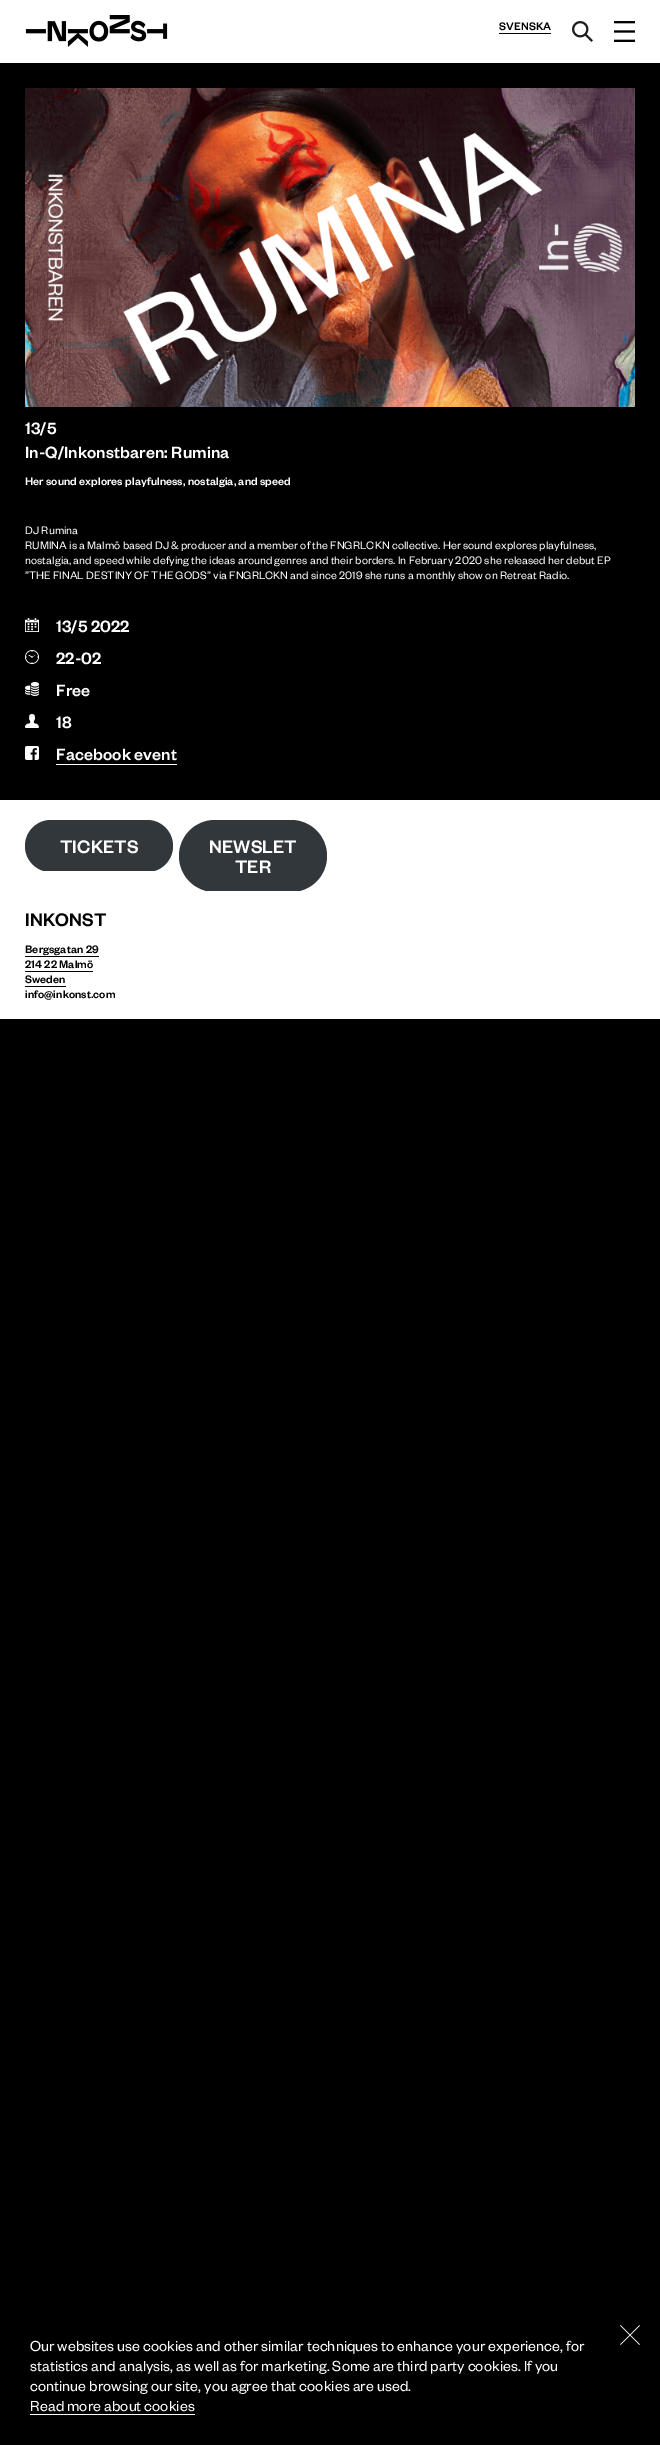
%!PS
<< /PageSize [660 2445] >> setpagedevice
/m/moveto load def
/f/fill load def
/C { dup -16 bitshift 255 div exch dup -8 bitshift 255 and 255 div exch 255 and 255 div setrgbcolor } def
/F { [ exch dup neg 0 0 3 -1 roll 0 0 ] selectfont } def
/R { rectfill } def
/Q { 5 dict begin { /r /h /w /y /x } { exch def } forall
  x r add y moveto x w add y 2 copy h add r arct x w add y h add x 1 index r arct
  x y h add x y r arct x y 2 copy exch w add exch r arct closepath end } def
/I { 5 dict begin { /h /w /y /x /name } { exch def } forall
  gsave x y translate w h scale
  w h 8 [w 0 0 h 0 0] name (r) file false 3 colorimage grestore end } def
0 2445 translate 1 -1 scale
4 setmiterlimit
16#000000 C
0 0 660 2445 R
16#FFFFFF C
0 0 660 63 R
(1.rgb) 25 15 143 32 I
/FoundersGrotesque-Medium 12 F
16#000000 C
499 30 m .1 0 (SVENSKA) ashow
499 33 52 1 R
(2.rgb) 572 21 21 21 I
(3.rgb) 614 21 21 21 I
(4.rgb) 25 88 610 319 I
/FoundersGrotesque-Medium 18 F
16#FFFFFF C
25 434 m .1 0 (13/5) ashow
25 458 m .1 0 (In-Q/Inkonstbaren: Rumina) ashow
/FoundersGrotesque-Medium 12 F
25 485 m .1 0 (Her sound explores playfulness, nostalgia, and speed) ashow
/FoundersGrotesque-Regular 12 F
25 534 m .1 0 (DJ Rumina) ashow
25 549 m .1 0 (RUMINA is a Malmö based DJ & producer and a member of the FNGRLCKN collective. Her sound explores playfulness,) ashow
25 564 m .1 0 (nostalgia, and speed while defying the ideas around genres and their borders. In February 2020 she released her debut EP) ashow
25 579 m .1 0 (”THE FINAL DESTINY OF THE GODS” via FNGRLCKN and since 2019 she runs a monthly show on Retreat Radio.) ashow
(5.rgb) 25 618 14 14 I
/FoundersGrotesque-Medium 18 F
56 632 m .1 0 (13/5 2022) ashow
(6.rgb) 25 650 14 14 I
56 664 m .1 0 (22-02) ashow
(7.rgb) 25 682 14 14 I
56 696 m .1 0 (Free) ashow
(8.rgb) 25 714 14 14 I
56 728 m .1 0 (18) ashow
(9.rgb) 25 746 14 14 I
56 760 m .1 0 (Facebook event) ashow
56 764 121 1 R
0 800 660 219 R
16#32373C C
25 820 148 52 26 Q f
16#FFFFFF C
38 871 122 1 R
/FoundersGrotesque-Medium 20 F
60 853 m .1 0 (TICKETS) ashow
16#32373C C
179 820 148 72 36 Q f
16#FFFFFF C
207 891 92 1 R
209 853 m .1 0 (NEWSLET) ashow
235 873 m .1 0 (TER) ashow
16#000000 C
25 926 m .1 0 (INKONST) ashow
/FoundersGrotesque-Medium 12 F
25 953 m .1 0 (Bergsgatan 29) ashow
25 956 74 1 R
25 968 m .1 0 (214 22 Malmö) ashow
25 971 68 1 R
25 983 m .1 0 (Sweden) ashow
25 986 41 1 R
25 998 m .1 0 (info@inkonst.com) ashow
(10.rgb) 620 2325 20 20 I
/FoundersGrotesque-Regular 16 F
16#FFFFFF C
30 2351 m .1 0 (Our websites use cookies and other similar techniques to enhance your experience, for) ashow
30 2371 m .1 0 (statistics and analysis, as well as for marketing. Some are third party cookies. If you) ashow
30 2391 m .1 0 (continue browsing our site, you agree that cookies are used.) ashow
30 2411 m .1 0 (Read more about cookies) ashow
30 2414 165 1 R
showpage
